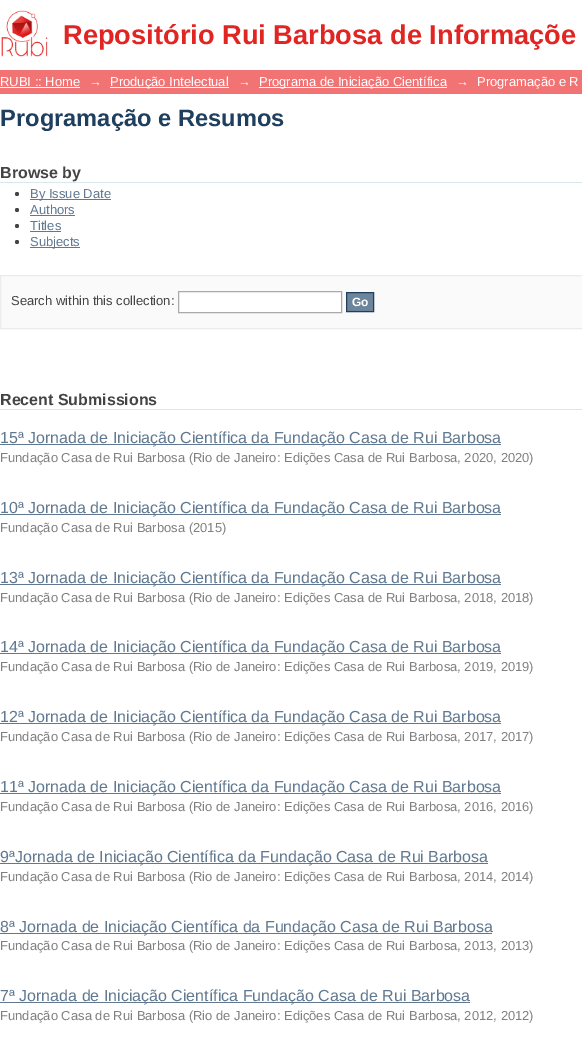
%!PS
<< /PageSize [582 1064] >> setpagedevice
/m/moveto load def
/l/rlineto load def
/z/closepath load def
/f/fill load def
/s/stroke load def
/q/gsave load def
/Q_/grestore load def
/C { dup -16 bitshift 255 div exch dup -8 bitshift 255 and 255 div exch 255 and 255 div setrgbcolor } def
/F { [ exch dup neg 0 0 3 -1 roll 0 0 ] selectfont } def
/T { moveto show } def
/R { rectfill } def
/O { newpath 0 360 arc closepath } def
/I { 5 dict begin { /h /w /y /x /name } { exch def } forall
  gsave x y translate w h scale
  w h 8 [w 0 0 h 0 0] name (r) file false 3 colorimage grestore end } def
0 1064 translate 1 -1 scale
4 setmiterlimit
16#FFFFFF C
0 0 582 1064 R
(1.rgb) 1 10 47 47 I
/LiberationSans-Bold 27.25 F
16#E12523 C
(Repositório Rui Barbosa de Informaçõe) 63 44 T
16#F17374 C
0 70 582 24 R
/LiberationSans-Regular 13 F
16#FFFFFF C
(RUBI :: Home) 0 86 T
0 87 80 1 R
(→) 89 86 T
110 87 119 1 R
(Produção Intelectual) 110 86 T
(→) 238 86 T
259 87 188 1 R
(Programa de Iniciação Científica) 259 86 T
(→) 456 86 T
(Programação e R) 477 86 T
/LiberationSans-Bold 23.7 F
16#1F3F5E C
(Programação e Resumos) 0 126 T
16#D8E8EB C
0 182 582 1 R
/LiberationSans-Bold 16 F
16#444444 C
(Browse by) 0 178 T
17 194 2 O f
16#607890 C
30 199 81 1 R
/LiberationSans-Regular 13 F
(By Issue Date) 30 198 T
16#444444 C
17 210 2 O f
16#607890 C
(Authors) 30 214 T
30 215 45 1 R
16#444444 C
17 226 2 O f
16#607890 C
(Titles) 30 230 T
30 231 31 1 R
16#444444 C
17 242 2 O f
16#607890 C
30 247 50 1 R
(Subjects) 30 246 T
16#FAFAFA C
.5 275.5 m 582 0 l 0 53 l -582 0 l z q f Q_
16#EBEBEB C
s
16#444444 C
(Search within this collection:) 11 305 T
16#FFFFFF C
178.5 291.5 m 163 0 l 0 21 l -163 0 l z q f Q_
16#AAAAAA C
s
16#6D859C C
346.5 292.5 m 27 0 l 0 19 l -27 0 l z q f Q_
16#1F3F5E C
s
/LiberationSans-Bold 12 F
16#FFFFFF C
(Go) 352 306 T
16#D8E8EB C
0 409 582 1 R
/LiberationSans-Bold 16 F
16#444444 C
(Recent Submissions) 0 405 T
16#607890 C
0 444 501 1 R
/LiberationSans-Regular 16 F
(15ª Jornada de Iniciação Científica da Fundação Casa de Rui Barbosa) 0 443 T
/LiberationSans-Regular 13 F
16#808080 C
(Fundação Casa de Rui Barbosa \(Rio de Janeiro: Edições Casa de Rui Barbosa, 2020, 2020\)) 0 462 T
16#607890 C
0 514 501 1 R
/LiberationSans-Regular 16 F
(10ª Jornada de Iniciação Científica da Fundação Casa de Rui Barbosa) 0 513 T
/LiberationSans-Regular 13 F
16#808080 C
(Fundação Casa de Rui Barbosa \(2015\)) 0 532 T
16#607890 C
0 584 501 1 R
/LiberationSans-Regular 16 F
(13ª Jornada de Iniciação Científica da Fundação Casa de Rui Barbosa) 0 583 T
/LiberationSans-Regular 13 F
16#808080 C
(Fundação Casa de Rui Barbosa \(Rio de Janeiro: Edições Casa de Rui Barbosa, 2018, 2018\)) 0 602 T
16#607890 C
0 653 501 1 R
/LiberationSans-Regular 16 F
(14ª Jornada de Iniciação Científica da Fundação Casa de Rui Barbosa) 0 652 T
/LiberationSans-Regular 13 F
16#808080 C
(Fundação Casa de Rui Barbosa \(Rio de Janeiro: Edições Casa de Rui Barbosa, 2019, 2019\)) 0 671 T
16#607890 C
0 723 501 1 R
/LiberationSans-Regular 16 F
(12ª Jornada de Iniciação Científica da Fundação Casa de Rui Barbosa) 0 722 T
/LiberationSans-Regular 13 F
16#808080 C
(Fundação Casa de Rui Barbosa \(Rio de Janeiro: Edições Casa de Rui Barbosa, 2017, 2017\)) 0 741 T
16#607890 C
0 793 501 1 R
/LiberationSans-Regular 16 F
(11ª Jornada de Iniciação Científica da Fundação Casa de Rui Barbosa) 0 792 T
/LiberationSans-Regular 13 F
16#808080 C
(Fundação Casa de Rui Barbosa \(Rio de Janeiro: Edições Casa de Rui Barbosa, 2016, 2016\)) 0 811 T
16#607890 C
0 863 488 1 R
/LiberationSans-Regular 16 F
(9ªJornada de Iniciação Científica da Fundação Casa de Rui Barbosa) 0 862 T
/LiberationSans-Regular 13 F
16#808080 C
(Fundação Casa de Rui Barbosa \(Rio de Janeiro: Edições Casa de Rui Barbosa, 2014, 2014\)) 0 881 T
16#607890 C
0 933 492 1 R
/LiberationSans-Regular 16 F
(8ª Jornada de Iniciação Científica da Fundação Casa de Rui Barbosa) 0 932 T
/LiberationSans-Regular 13 F
16#808080 C
(Fundação Casa de Rui Barbosa \(Rio de Janeiro: Edições Casa de Rui Barbosa, 2013, 2013\)) 0 950 T
16#607890 C
0 1002 470 1 R
/LiberationSans-Regular 16 F
(7ª Jornada de Iniciação Científica Fundação Casa de Rui Barbosa) 0 1001 T
/LiberationSans-Regular 13 F
16#808080 C
(Fundação Casa de Rui Barbosa \(Rio de Janeiro: Edições Casa de Rui Barbosa, 2012, 2012\)) 0 1020 T
showpage
